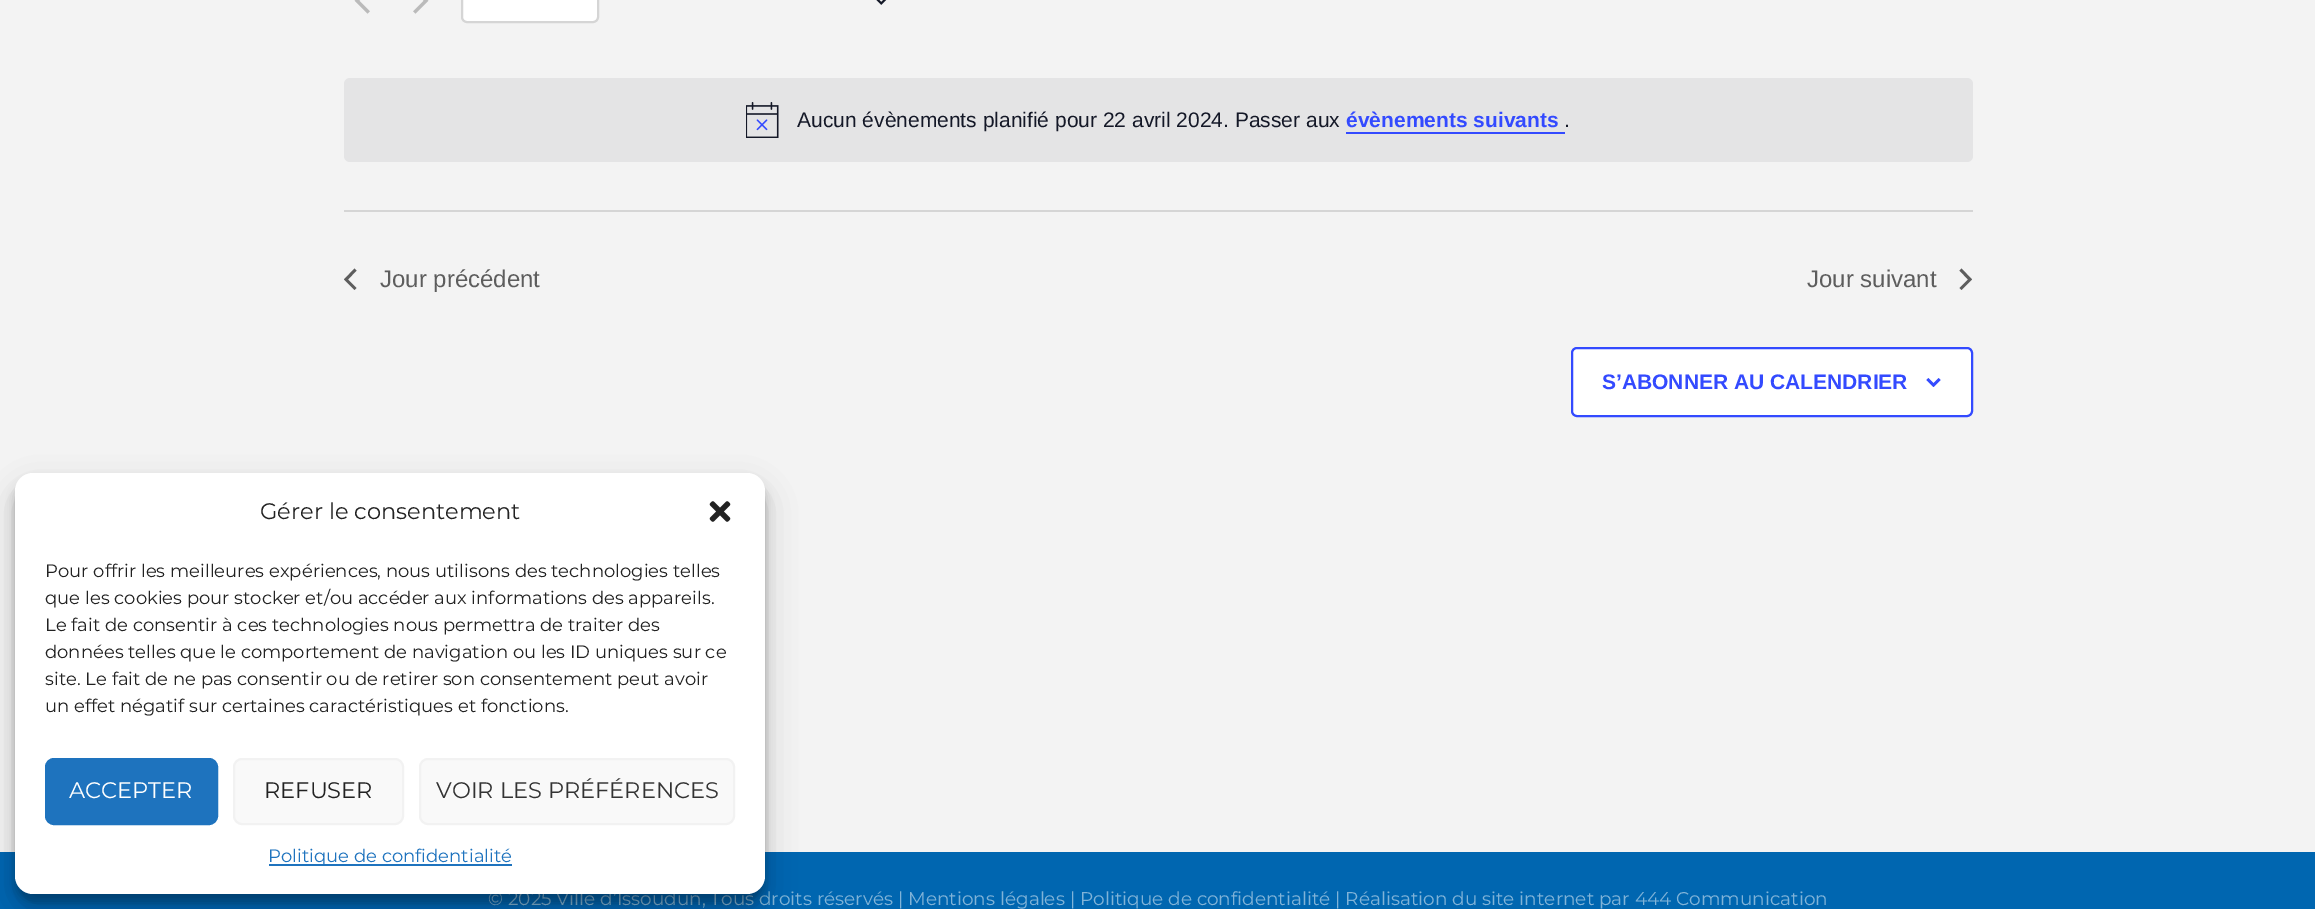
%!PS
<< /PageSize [2315 909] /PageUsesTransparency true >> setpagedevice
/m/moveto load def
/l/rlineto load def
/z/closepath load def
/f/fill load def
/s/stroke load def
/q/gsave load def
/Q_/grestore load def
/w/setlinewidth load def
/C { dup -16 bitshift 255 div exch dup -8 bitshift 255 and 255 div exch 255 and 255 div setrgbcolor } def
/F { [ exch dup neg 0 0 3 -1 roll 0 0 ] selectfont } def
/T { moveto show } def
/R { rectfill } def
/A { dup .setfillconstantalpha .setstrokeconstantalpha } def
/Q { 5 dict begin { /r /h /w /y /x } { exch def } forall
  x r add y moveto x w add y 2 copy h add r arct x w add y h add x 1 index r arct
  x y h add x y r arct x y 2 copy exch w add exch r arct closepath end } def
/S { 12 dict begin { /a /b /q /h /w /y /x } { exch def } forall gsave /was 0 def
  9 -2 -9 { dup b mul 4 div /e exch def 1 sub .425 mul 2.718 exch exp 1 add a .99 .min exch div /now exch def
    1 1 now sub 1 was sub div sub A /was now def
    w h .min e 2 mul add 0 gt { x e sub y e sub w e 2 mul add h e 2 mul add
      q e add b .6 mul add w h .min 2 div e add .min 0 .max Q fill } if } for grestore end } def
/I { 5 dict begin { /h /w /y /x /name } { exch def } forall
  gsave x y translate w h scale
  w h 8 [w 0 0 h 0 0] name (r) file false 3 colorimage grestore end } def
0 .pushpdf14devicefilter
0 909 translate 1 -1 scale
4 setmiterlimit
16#F3F3F3 C
0 0 2315 909 R
(1.rgb) 354 0 16 14 I
(2.rgb) 413 0 16 14 I
16#FFFFFF C
462 -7 136 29 5 Q q f Q_
16#D5D5D5 C
2 w
s
(3.rgb) 876 0 11 5 I
16#E4E4E5 C
344 78 1629 84 6 Q f
(4.rgb) 746 102 33 36 I
/LiberationSans-Regular 21 F
16#141827 C
(Aucun évènements planifié pour 22 avril 2024. Passer aux) 797 127 T
/LiberationSans-Bold 21 F
16#334AFF C
(évènements suivants) 1346 127 T
1346 132 219 2 R
/LiberationSans-Regular 21 F
16#141827 C
(.) 1564 127 T
16#D5D5D5 C
344 210 1629 2 R
16#5D5D5D C
356.5 288 m -2 2 l -10.5 -10.5 l 10.5 -11 l 2 2 l -8.5 9 l z f
/LiberationSans-Regular 24 F
(Jour précédent) 380 287 T
(Jour suivant) 1807 287 T
1959.5 270.5 m 2 -2 l 10.5 11 l -10.5 10.5 l -2 -2 l 8.5 -8.5 l z f
16#FFFFFF C
1572 348 400 68 5 Q q f Q_
16#334AFF C
s
/LiberationSans-Bold 21 F
(S’ABONNER AU CALENDRIER) 1602 389 T
(5.rgb) 1926 378 15 9 I
16#0066B0 C
0 852 2315 57 R
/Montserrat-Regular 18.48 F
16#80B3D8 C
(© 2025 Ville d’Issoudun, Tous droits réservés | Mentions légales | Politique de confidentialité | Réalisation du site internet par 444 Communication) 488 905 T
16#000000 C
15 482 750 421 18 4.5 .23 S
15 488 750 421 18 15 .19 S
16#FFFFFF C
15 473 750 421 18 Q f
/Montserrat-Regular 22.5 F
16#222222 C
(Gérer le consentement) 260 519 T
(6.rgb) 709 501 22 21 I
/Montserrat-Regular 18 F
(Pour offrir les meilleures expériences, nous utilisons des technologies telles) 45 577 T
(que les cookies pour stocker et/ou accéder aux informations des appareils.) 45 604 T
(Le fait de consentir à ces technologies nous permettra de traiter des) 45 631 T
(données telles que le comportement de navigation ou les ID uniques sur ce) 45 658 T
(site. Le fait de ne pas consentir ou de retirer son consentement peut avoir) 45 685 T
(un effet négatif sur certaines caractéristiques et fonctions.) 45 712 T
16#1E73BE C
46 759 171 65 8 Q q f Q_
s
/Montserrat-Regular 22.5 F
16#FFFFFF C
(ACCEPTER) 69 798 T
16#F9F9F9 C
234 759 169 65 8 Q q f Q_
16#F2F2F2 C
s
16#222222 C
(REFUSER) 264 798 T
16#F9F9F9 C
420 759 314 65 8 Q q f Q_
16#F2F2F2 C
s
16#333333 C
(VOIR LES PRÉFÉRENCES) 436 798 T
16#1E73BE C
269 864 243 2 R
/Montserrat-Regular 18 F
(Politique de confidentialité) 268 862 T
.poppdf14devicefilter showpage
